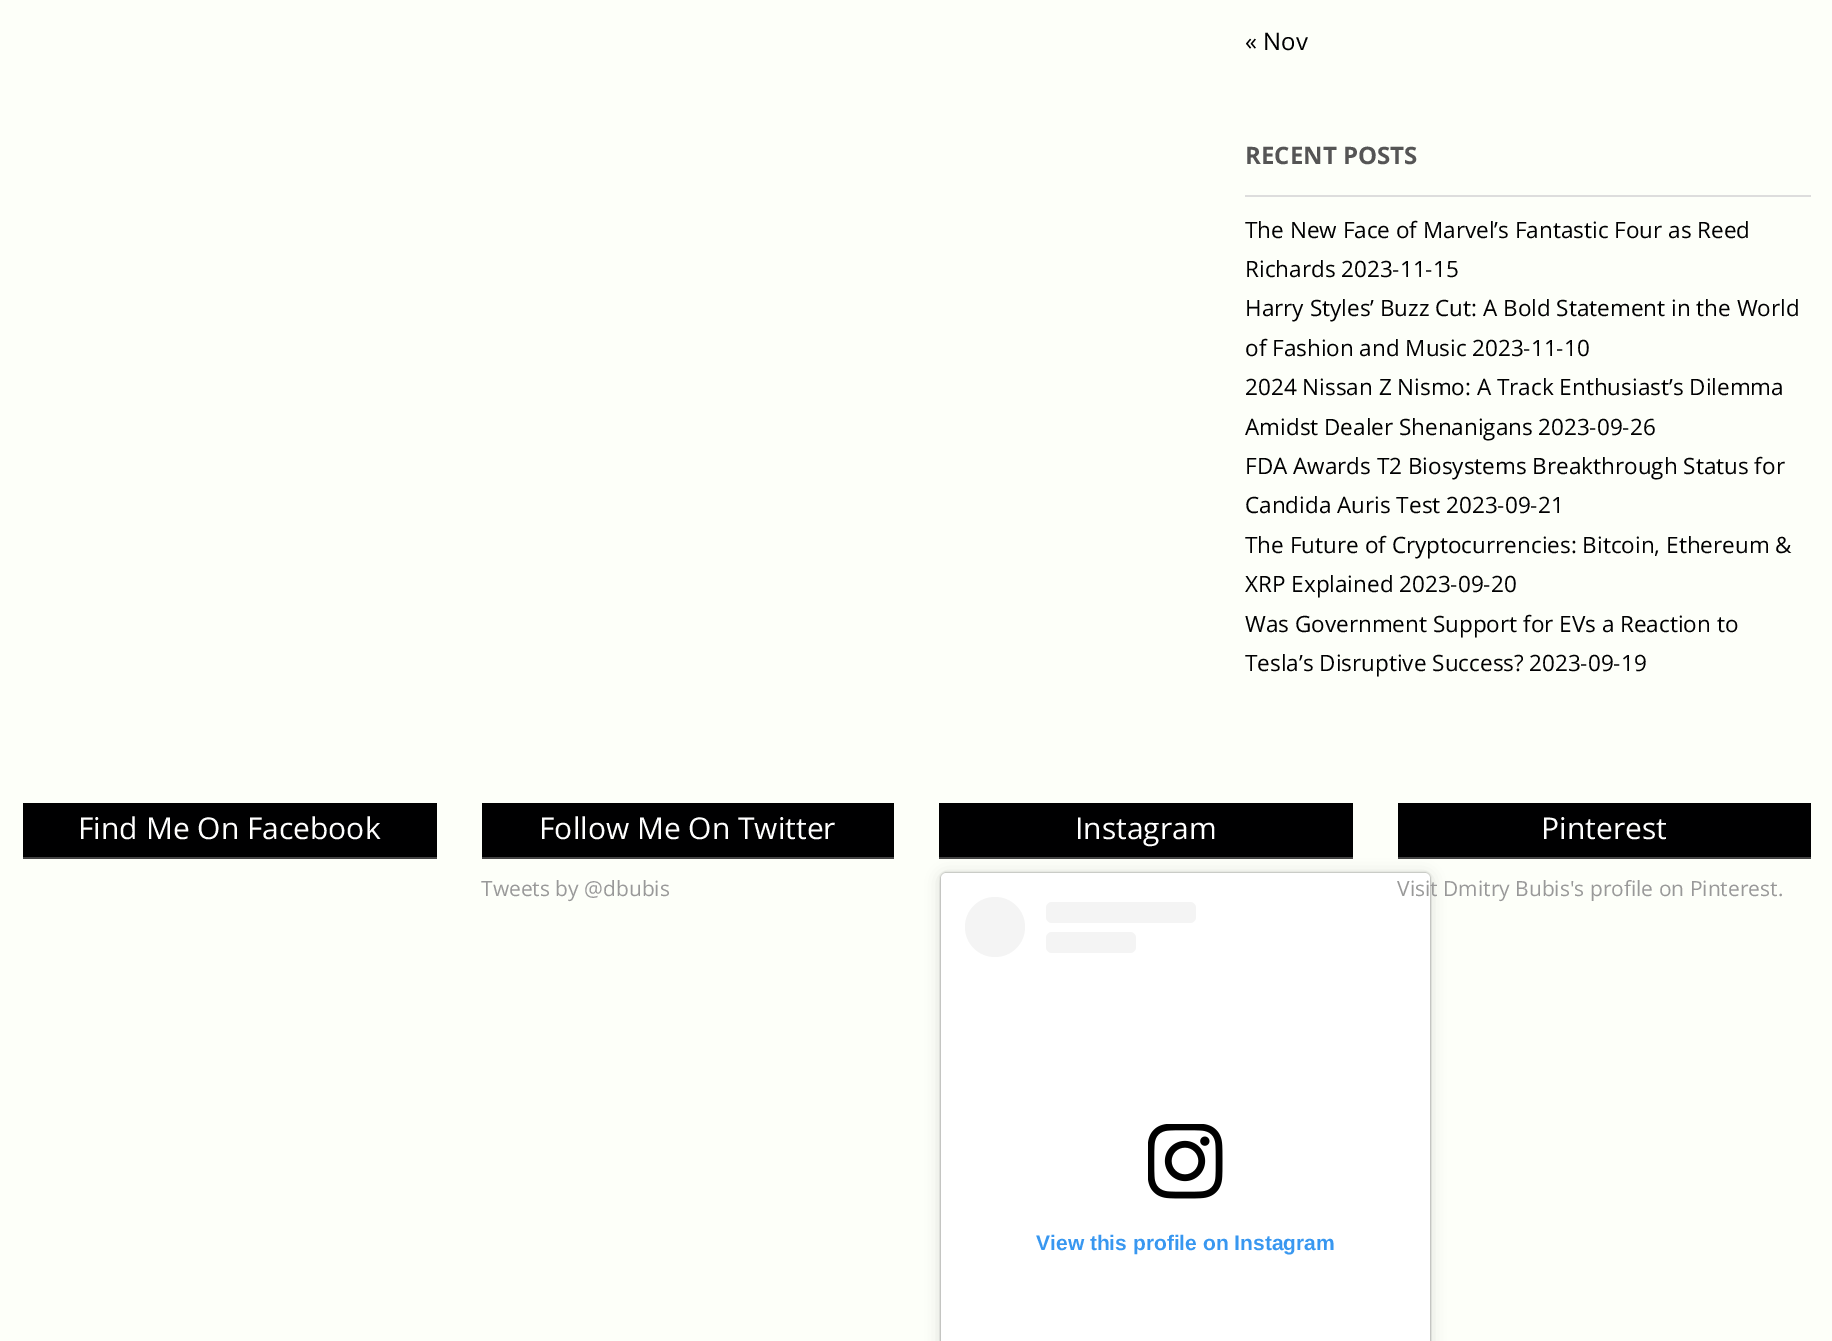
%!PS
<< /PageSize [1832 1341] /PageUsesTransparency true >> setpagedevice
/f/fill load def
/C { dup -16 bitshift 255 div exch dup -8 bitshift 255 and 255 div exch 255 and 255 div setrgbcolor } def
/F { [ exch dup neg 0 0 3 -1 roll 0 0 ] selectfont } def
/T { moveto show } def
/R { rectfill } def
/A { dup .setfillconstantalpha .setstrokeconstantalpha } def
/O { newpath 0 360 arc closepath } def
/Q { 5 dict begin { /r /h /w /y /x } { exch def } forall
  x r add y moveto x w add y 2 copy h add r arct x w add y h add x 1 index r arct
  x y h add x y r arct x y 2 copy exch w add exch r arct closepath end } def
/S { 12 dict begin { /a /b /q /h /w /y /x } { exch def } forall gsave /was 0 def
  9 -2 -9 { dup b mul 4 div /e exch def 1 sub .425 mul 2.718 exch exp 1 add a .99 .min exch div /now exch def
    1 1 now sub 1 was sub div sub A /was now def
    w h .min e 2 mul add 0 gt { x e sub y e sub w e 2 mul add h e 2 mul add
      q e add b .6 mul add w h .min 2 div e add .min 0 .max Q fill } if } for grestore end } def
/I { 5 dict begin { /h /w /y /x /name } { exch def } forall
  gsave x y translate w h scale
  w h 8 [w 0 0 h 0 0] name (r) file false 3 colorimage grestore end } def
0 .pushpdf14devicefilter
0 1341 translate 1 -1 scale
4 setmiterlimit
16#FDFFF9 C
0 0 1832 1341 R
/OpenSans-Regular 24 F
16#000001 C
(« Nov) 1245 50 T
16#DDDDDD C
1245 195 566 2 R
/OpenSans-Bold 24 F
16#555555 C
(RECENT POSTS) 1245 164 T
/OpenSans-Regular 22.5 F
16#000001 C
(The New Face of Marvel’s Fantastic Four as Reed) 1245 238 T
(Richards) 1245 277 T
(2023-11-15) 1341 277 T
(Harry Styles’ Buzz Cut: A Bold Statement in the World) 1245 316 T
(of Fashion and Music) 1245 356 T
(2023-11-10) 1472 356 T
(2024 Nissan Z Nismo: A Track Enthusiast’s Dilemma) 1245 395 T
(Amidst Dealer Shenanigans) 1245 435 T
(2023-09-26) 1538 435 T
(FDA Awards T2 Biosystems Breakthrough Status for) 1245 474 T
(Candida Auris Test) 1245 513 T
(2023-09-21) 1446 513 T
(The Future of Cryptocurrencies: Bitcoin, Ethereum &) 1245 553 T
(XRP Explained) 1245 592 T
(2023-09-20) 1399 592 T
(Was Government Support for EVs a Reaction to) 1245 632 T
(Tesla’s Disruptive Success?) 1245 671 T
(2023-09-19) 1529 671 T
23 803 414 54 R
16#444444 C
23 857 414 2 R
/OpenSans-Regular 30 F
16#FFFFFF C
(Find Me On Facebook) 78 839 T
16#000001 C
482 803 412 54 R
16#444444 C
482 857 412 2 R
16#FFFFFF C
(Follow Me On Twitter) 539 839 T
/OpenSans-Regular 21 F
16#999999 C
(Tweets by @dbubis) 481 896 T
16#000001 C
939 803 414 54 R
16#444444 C
939 857 414 2 R
/OpenSans-Regular 30 F
16#FFFFFF C
(Instagram) 1075 839 T
16#000000 C
941 875 489 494 5 7.5 .15 S
941 873 489 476 5 1 .5 S
16#FFFFFF C
941 873 489 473 5 Q f
16#F4F4F4 C
995 927 30 O f
1046 902 150 21 6 Q f
1046 932 90 21 6 Q f
(1.rgb) 1148 1124 75 75 I
/LiberationSans-Bold 21 F
16#3897F0 C
(View this profile on Instagram) 1036 1250 T
16#000001 C
1398 803 413 54 R
16#444444 C
1398 857 413 2 R
/OpenSans-Regular 30 F
16#FFFFFF C
(Pinterest) 1541 839 T
/OpenSans-Regular 21 F
16#999999 C
(Visit Dmitry Bubis's profile on Pinterest.) 1397 896 T
.poppdf14devicefilter showpage
